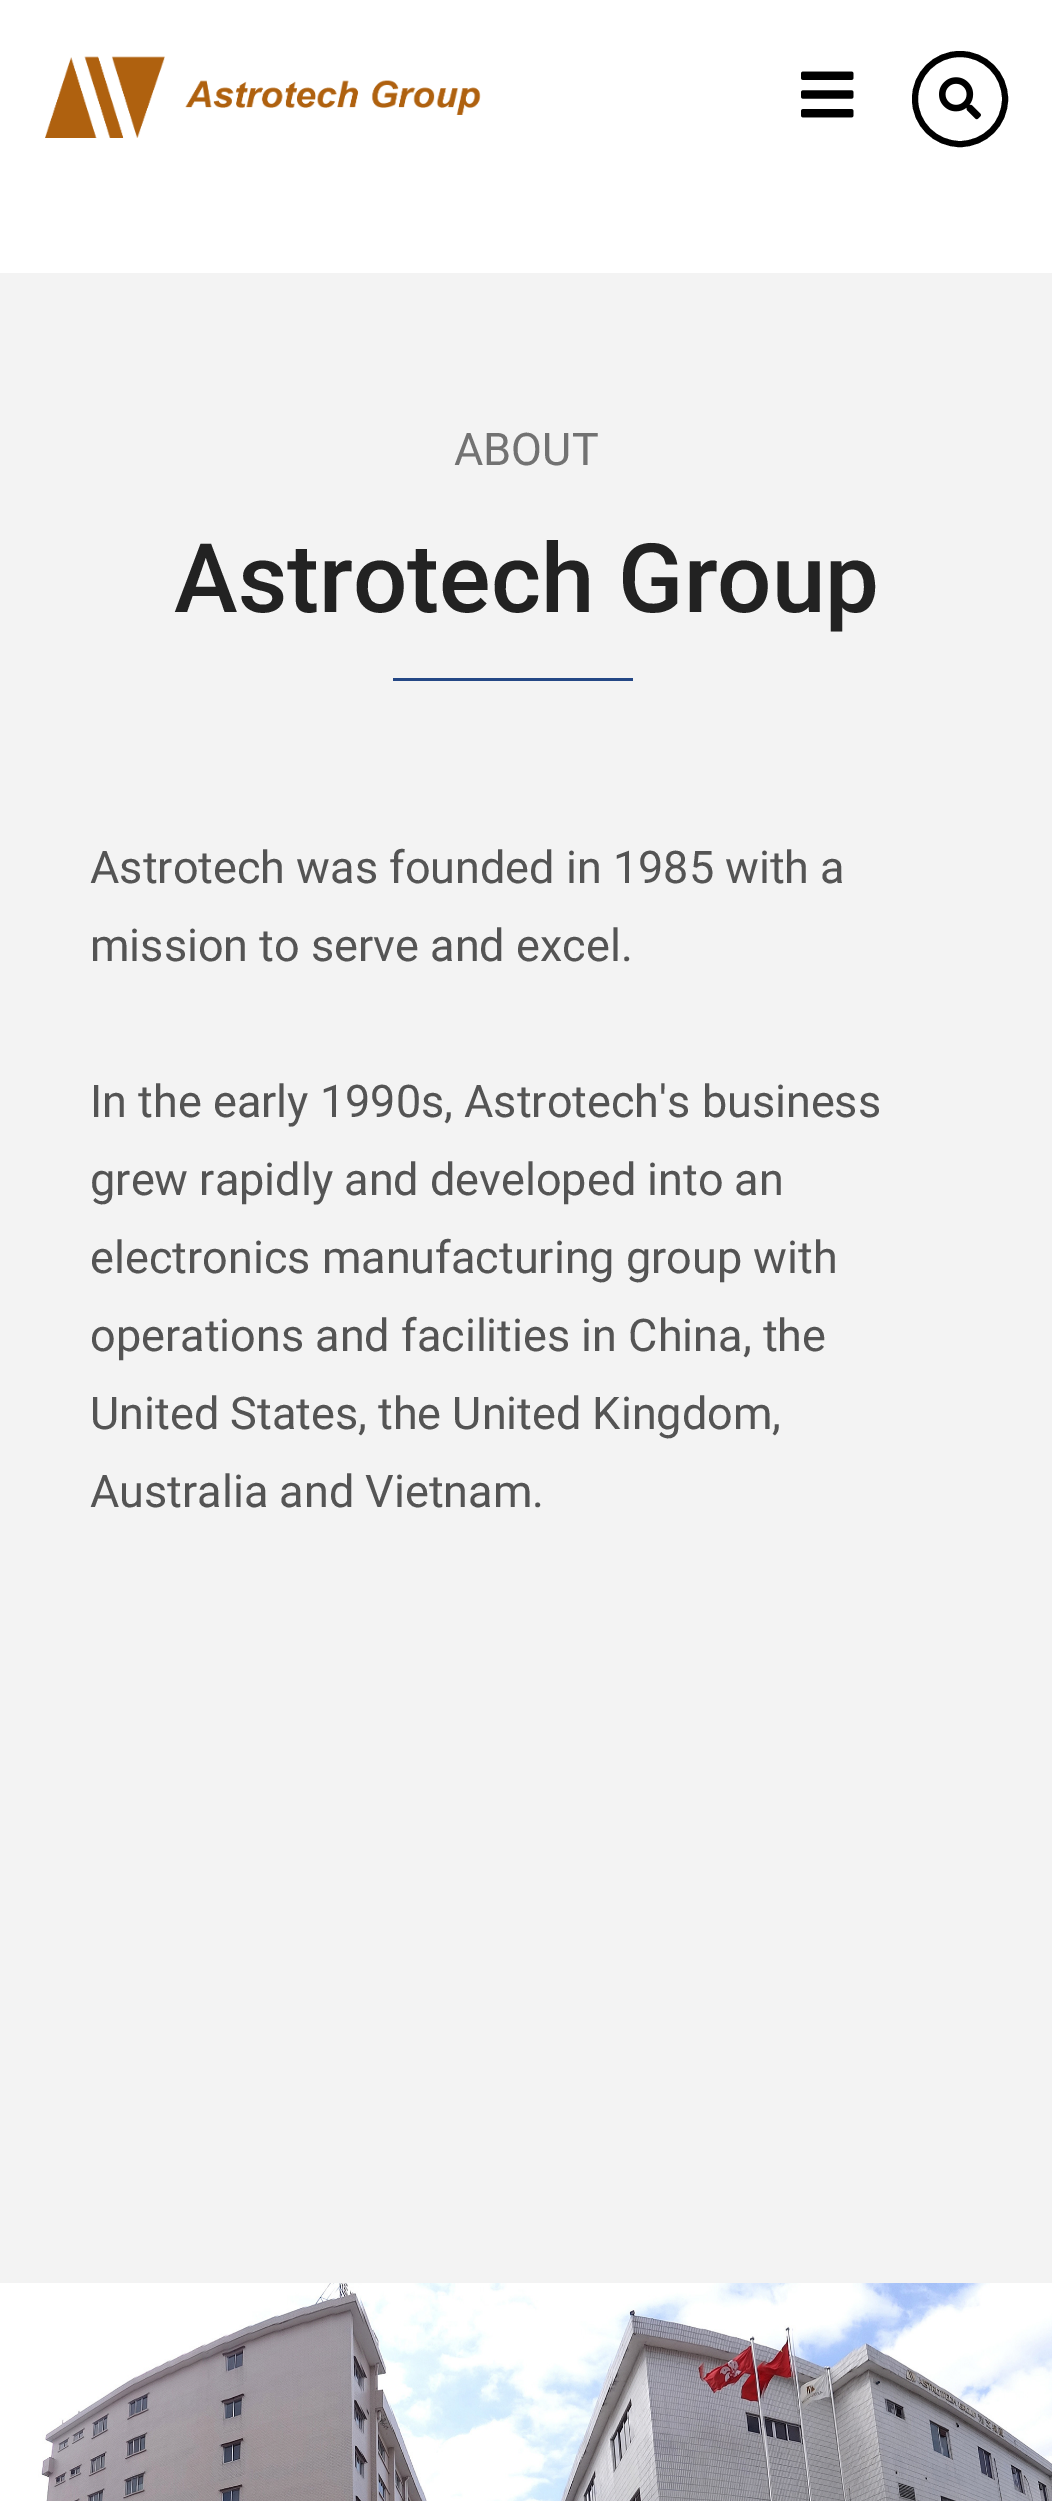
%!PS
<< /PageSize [1052 2501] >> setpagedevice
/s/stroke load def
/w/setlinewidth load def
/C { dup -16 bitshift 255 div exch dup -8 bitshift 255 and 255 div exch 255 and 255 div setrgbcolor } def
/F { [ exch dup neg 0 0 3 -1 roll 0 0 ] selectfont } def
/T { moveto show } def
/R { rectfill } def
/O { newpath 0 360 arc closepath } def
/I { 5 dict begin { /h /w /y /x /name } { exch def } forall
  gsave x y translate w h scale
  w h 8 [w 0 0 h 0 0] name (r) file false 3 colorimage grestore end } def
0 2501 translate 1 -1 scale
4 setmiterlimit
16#FFFFFF C
0 0 1052 2501 R
(1.rgb) 45 56 436 82 I
(2.rgb) 801 71 53 47 I
16#000000 C
6 w
960 99 45 O s
(3.rgb) 939 77 42 43 I
16#F3F3F3 C
0 273 1052 2010 R
/Roboto-Regular 45 F
16#727272 C
(ABOUT) 454 465 T
/Roboto-Medium 96 F
16#222222 C
(Astrotech Group) 174 612 T
16#244785 C
393 678 240 3 R
/Roboto-Regular 45 F
16#545454 C
(Astrotech was founded in 1985 with a) 90 883 T
(mission to serve and excel.) 90 961 T
(In the early 1990s, Astrotech's business) 90 1117 T
(grew rapidly and developed into an) 90 1195 T
(electronics manufacturing group with) 90 1273 T
(operations and facilities in China, the) 90 1351 T
(United States, the United Kingdom,) 90 1429 T
(Australia and Vietnam.) 90 1507 T
(4.rgb) 0 2283 1052 218 I
showpage
